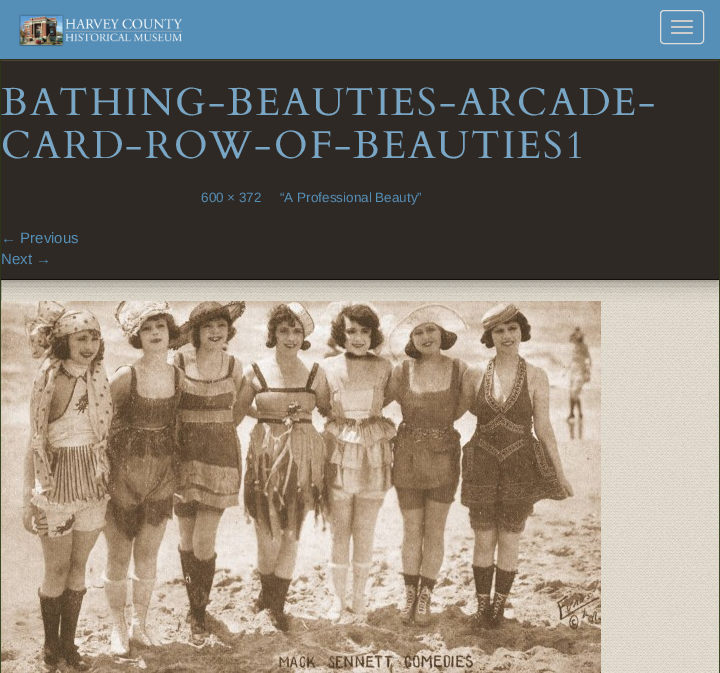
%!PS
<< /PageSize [720 673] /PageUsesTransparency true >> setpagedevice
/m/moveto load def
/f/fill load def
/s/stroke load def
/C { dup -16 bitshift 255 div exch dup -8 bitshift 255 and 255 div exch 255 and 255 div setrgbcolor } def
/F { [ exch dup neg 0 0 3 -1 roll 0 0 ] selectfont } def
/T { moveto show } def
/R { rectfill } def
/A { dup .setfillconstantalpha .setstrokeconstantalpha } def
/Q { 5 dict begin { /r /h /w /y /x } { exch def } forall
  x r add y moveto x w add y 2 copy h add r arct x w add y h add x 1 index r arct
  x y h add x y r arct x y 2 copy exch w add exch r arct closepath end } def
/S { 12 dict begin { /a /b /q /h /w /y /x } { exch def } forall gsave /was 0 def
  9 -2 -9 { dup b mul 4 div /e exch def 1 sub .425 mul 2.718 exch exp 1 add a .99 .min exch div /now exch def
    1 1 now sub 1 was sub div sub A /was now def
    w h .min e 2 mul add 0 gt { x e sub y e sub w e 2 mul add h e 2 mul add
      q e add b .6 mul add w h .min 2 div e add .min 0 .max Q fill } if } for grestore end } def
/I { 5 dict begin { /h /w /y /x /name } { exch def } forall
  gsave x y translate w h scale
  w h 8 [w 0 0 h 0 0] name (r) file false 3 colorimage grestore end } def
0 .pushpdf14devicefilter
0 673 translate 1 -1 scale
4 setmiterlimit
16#FFFFFF C
0 0 720 673 R
(2.rgb) 1 280 718 393 I
16#3B4624 C
.5 59.5 719 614 rectstroke
16#000000 C
1 60 718 220 0 10 .5 S
16#558EB6 C
0 0 720 59 R
(1.rgb) 19 14 164 33 I
16#DDDDDD C
660.5 10.5 43 33 3.5 Q s
16#CCCCCC C
671 20 22 2 1 Q f
671 26 22 2 1 Q f
671 32 22 2 1 Q f
16#2E2924 C
1 61 718 218 R
16#4B423A C
1 60 718 1 R
16#110F0E C
1 279 718 1 R
/Cardo-Regular 39 F
16#79A6C5 C
1 115 m 2 0 (BATHING-BEAUTIES-ARCADE-) ashow
1 158 m 2 0 (CARD-ROW-OF-BEAUTIES1) ashow
/LiberationSans-Regular 13.5 F
16#558EB6 C
(600 × 372) 201 202 T
(“A Professional Beauty”) 280 202 T
/LiberationSans-Regular 15 F
(← Previous) 1 243 T
(Next →) 1 264 T
(3.rgb) 1 301 600 372 I
.poppdf14devicefilter showpage
